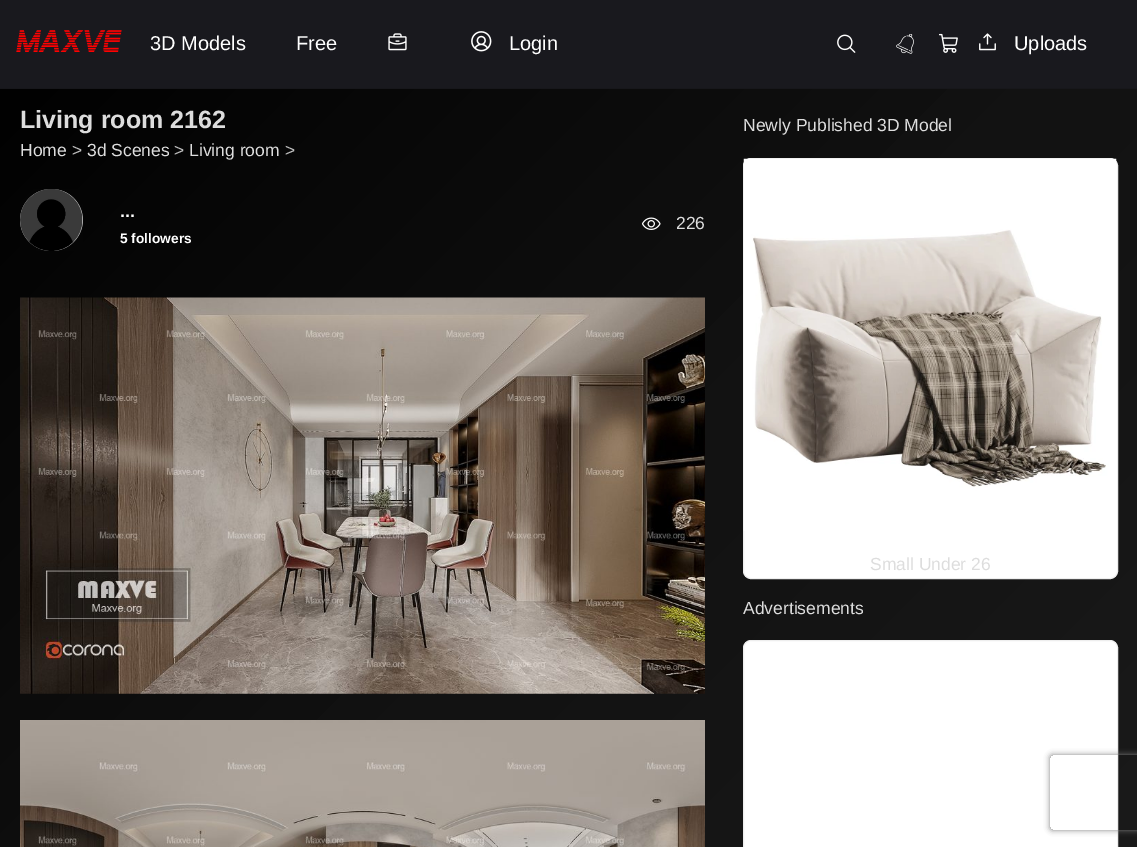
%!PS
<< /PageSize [1137 847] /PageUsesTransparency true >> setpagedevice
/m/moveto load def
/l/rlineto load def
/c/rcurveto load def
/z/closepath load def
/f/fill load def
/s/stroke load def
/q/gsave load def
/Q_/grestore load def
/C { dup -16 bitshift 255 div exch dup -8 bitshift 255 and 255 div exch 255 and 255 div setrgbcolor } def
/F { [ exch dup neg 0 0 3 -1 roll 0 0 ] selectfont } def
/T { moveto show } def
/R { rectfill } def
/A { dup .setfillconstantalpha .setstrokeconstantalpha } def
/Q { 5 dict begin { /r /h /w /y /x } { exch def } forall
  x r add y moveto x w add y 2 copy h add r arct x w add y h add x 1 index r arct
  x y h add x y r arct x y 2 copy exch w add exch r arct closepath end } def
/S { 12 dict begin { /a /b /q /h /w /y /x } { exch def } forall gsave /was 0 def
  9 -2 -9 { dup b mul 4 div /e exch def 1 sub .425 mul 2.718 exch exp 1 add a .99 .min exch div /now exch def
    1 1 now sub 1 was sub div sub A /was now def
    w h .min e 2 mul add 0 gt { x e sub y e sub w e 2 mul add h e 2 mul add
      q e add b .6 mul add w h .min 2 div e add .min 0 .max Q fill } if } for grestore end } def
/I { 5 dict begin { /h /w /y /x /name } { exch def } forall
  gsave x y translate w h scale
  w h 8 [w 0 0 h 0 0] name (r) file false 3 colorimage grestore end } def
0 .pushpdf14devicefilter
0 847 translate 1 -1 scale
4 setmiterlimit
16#FFFFFF C
0 0 1137 847 R
q 0 89 m 1137 0 l 0 758 l -1137 0 l z clip newpath
<< /ShadingType 2 /ColorSpace /DeviceRGB /Coords [-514 514 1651 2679] /Extend [true true] /Function << /FunctionType 3 /Domain [0 1] /Functions [<< /FunctionType 2 /Domain [0 1] /C0 [0 0 0] /C1 [.067 .067 .067] /N 1 >> << /FunctionType 2 /Domain [0 1] /C0 [.067 .067 .067] /C1 [.11 .11 .11] /N 1 >> << /FunctionType 2 /Domain [0 1] /C0 [.11 .11 .11] /C1 [.165 .165 .165] /N 1 >> << /FunctionType 2 /Domain [0 1] /C0 [.165 .165 .165] /C1 [.235 .235 .235] /N 1 >>] /Bounds [.25 .5 .75] /Encode [0 1 0 1 0 1 0 1] >> >> shfill Q_
16#19191E C
0 0 1137 88 R
16#17171B C
0 88 1137 1 R
(1.rgb) 16 30 106 22 I
/LiberationSans-Regular 20 F
16#FFFFFF C
(3D Models) 150 50 T
(Free) 296 50 T
(2.rgb) 388 33 19 18 I
(3.rgb) 471 31 21 21 I
(Login) 509 50 T
(4.rgb) 837 34 19 19 I
(5.rgb) 896 34 18 20 I
(6.rgb) 939 33 19 20 I
(7.rgb) 979 33 17 18 I
(Uploads) 1014 50 T
/LiberationSans-Bold 25 F
16#DDDDDD C
(Living room 2162) 20 128 T
/LiberationSans-Regular 17.5 F
(Home) 20 156 T
16#BFBFBF C
(>) 72 156 T
16#DDDDDD C
(3d Scenes) 87 156 T
16#BFBFBF C
(>) 174 156 T
16#DDDDDD C
(Living room) 189 156 T
16#BFBFBF C
(>) 285 156 T
16#CCCCCC C
20 189 63 62 31 Q f
(8.rgb) 20 189 63 62 I
/LiberationSans-Bold 17.5 F
16#FFFFFF C
(...) 120 217 T
/LiberationSans-Bold 13.75 F
(5 followers) 120 243 T
(9.rgb) 641 217 20 13 I
/LiberationSans-Regular 17.5 F
16#DDDDDD C
(226) 676 229 T
(10.rgb) 20 297 685 397 I
(11.rgb) 20 720 685 127 I
(Newly Published 3D Model) 743 131 T
16#FFFFFF C
743.5 158.5 374 420 7.5 Q q f Q_
16#EEEEEE C
s
(12.rgb) 743 158 374 373 I
16#DDDDDD C
(Small Under 26) 870 570 T
(Advertisements) 743 614 T
16#FFFFFF C
743.5 640.5 374 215 7.5 Q q f Q_
16#EEEEEE C
s
q
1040 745 m 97 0 l 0 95 l -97 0 l z 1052.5 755 m 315 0 l 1.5 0 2.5 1 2.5 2.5 c 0 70 l 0 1.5 -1 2.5 -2.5 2.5 c -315 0 l -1.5 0 -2.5 -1 -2.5 -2.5 c 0 -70 l 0 -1.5 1 -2.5 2.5 -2.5 c z eoclip newpath
16#808080 C
1050 755 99 75 2.5 3 1 S
Q_
.poppdf14devicefilter showpage
